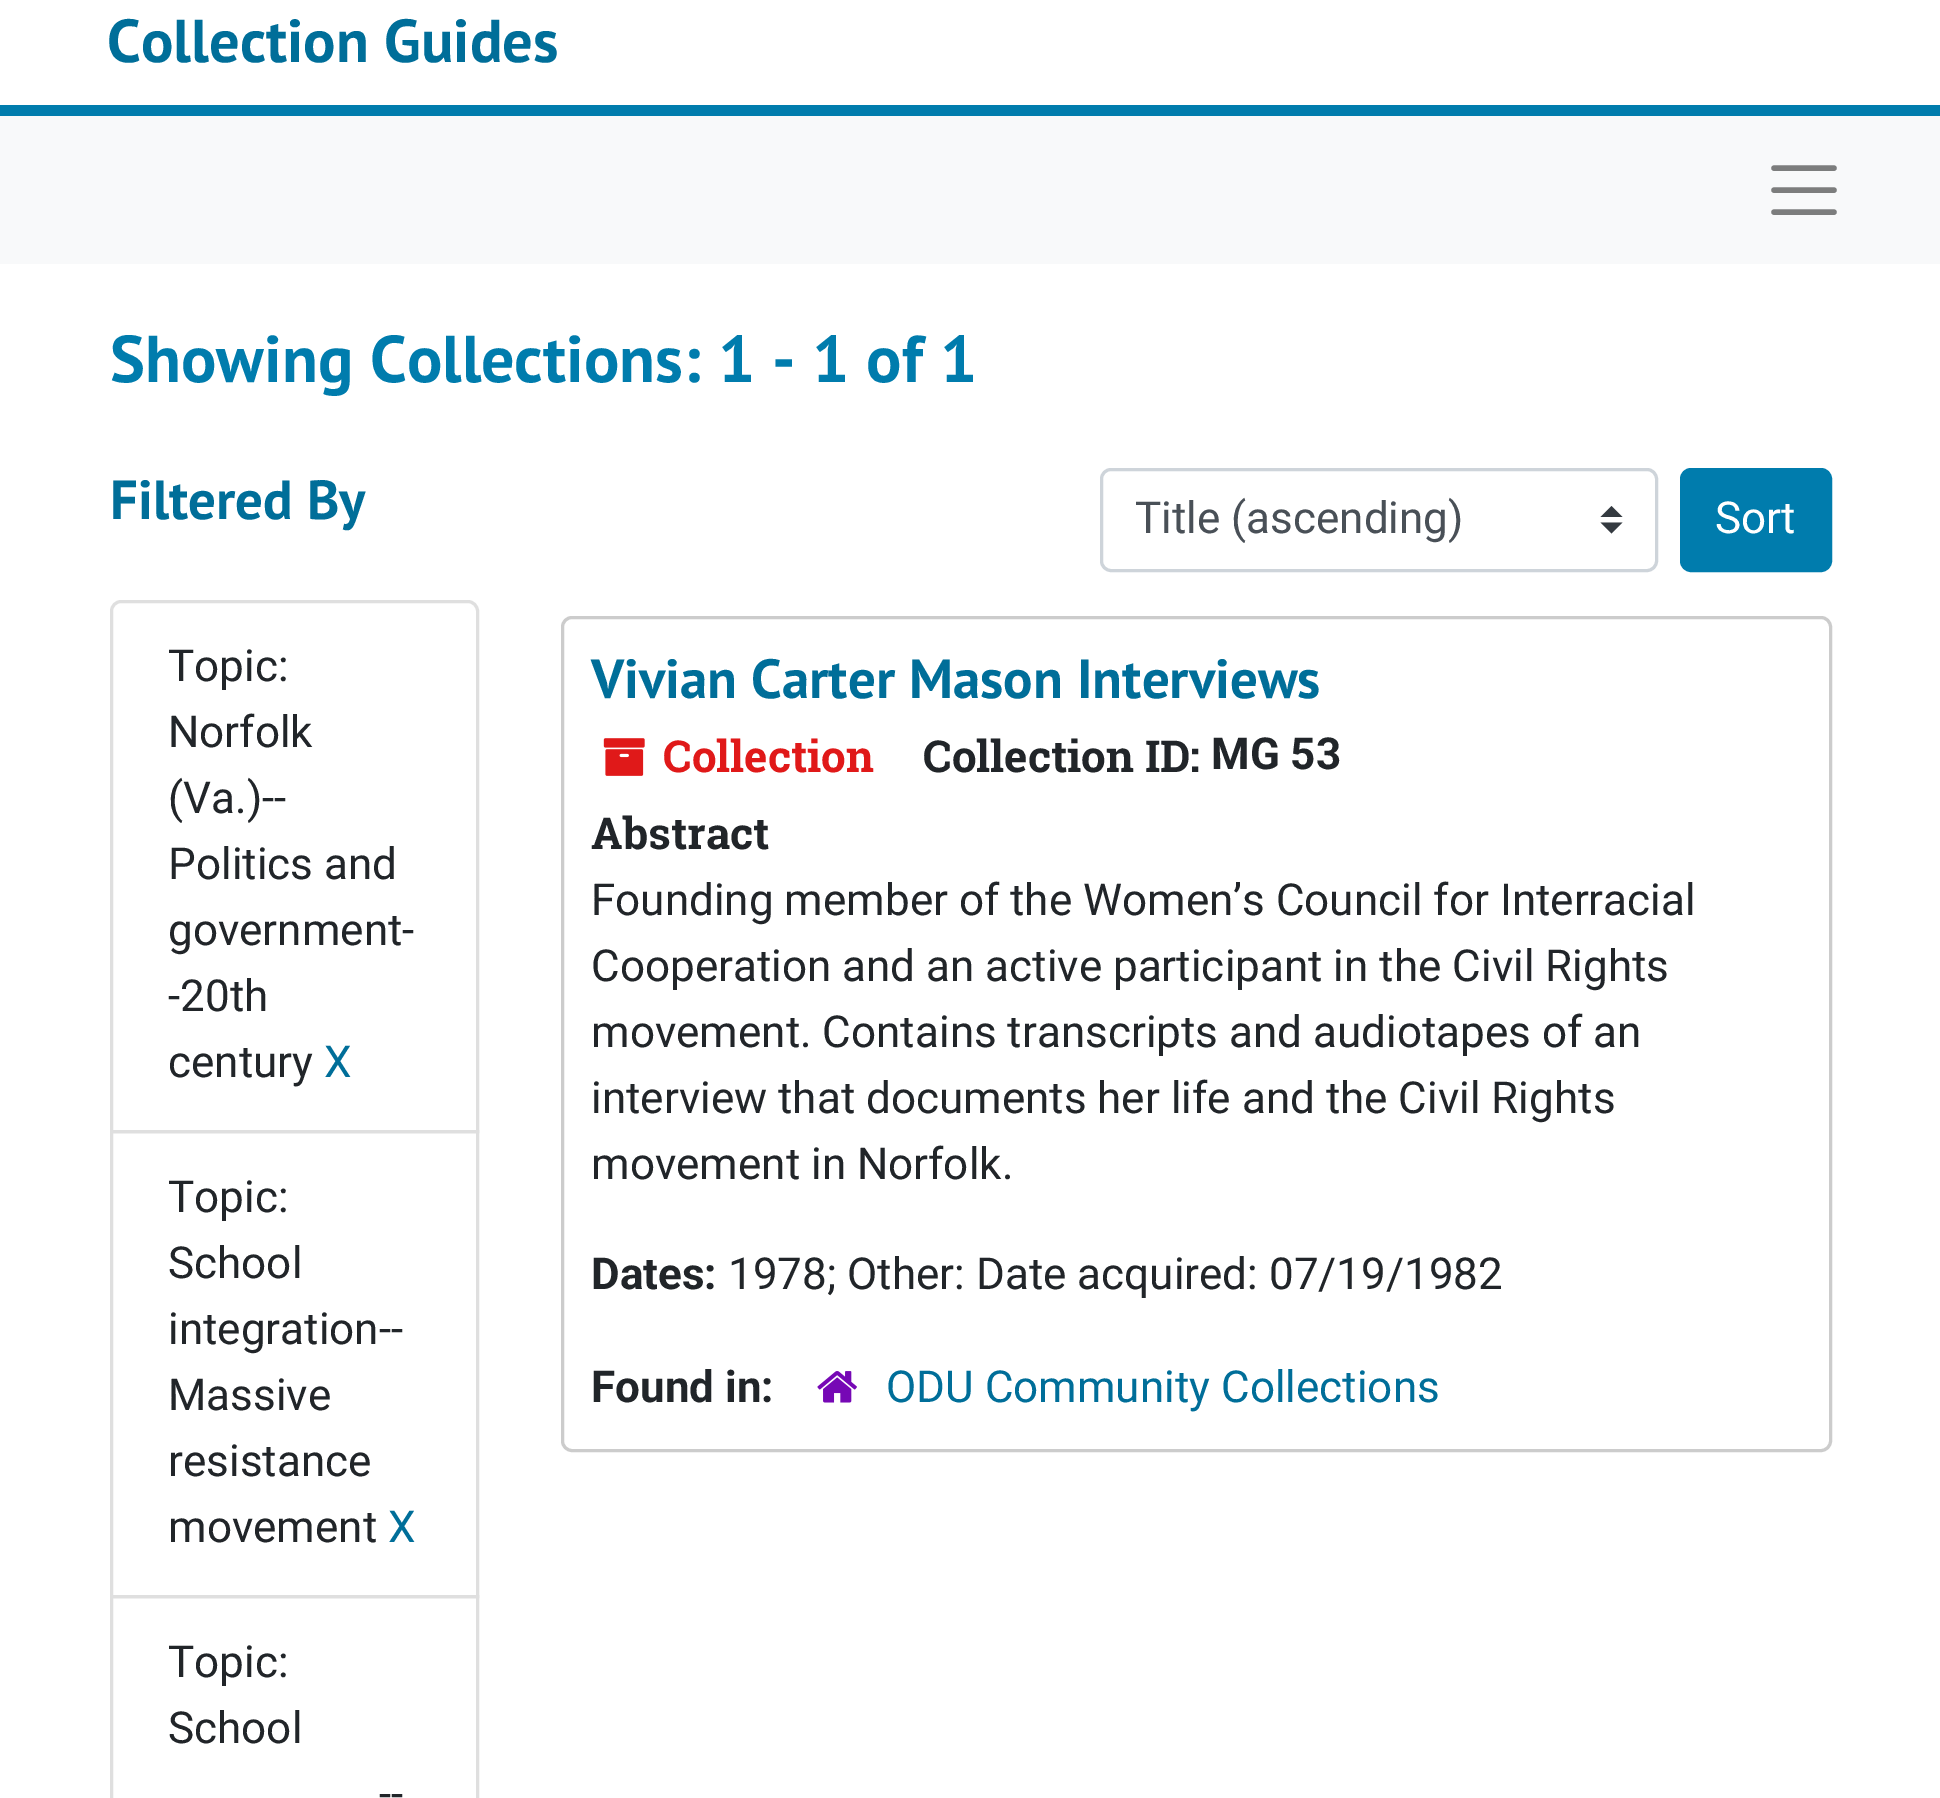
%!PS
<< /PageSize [1940 1798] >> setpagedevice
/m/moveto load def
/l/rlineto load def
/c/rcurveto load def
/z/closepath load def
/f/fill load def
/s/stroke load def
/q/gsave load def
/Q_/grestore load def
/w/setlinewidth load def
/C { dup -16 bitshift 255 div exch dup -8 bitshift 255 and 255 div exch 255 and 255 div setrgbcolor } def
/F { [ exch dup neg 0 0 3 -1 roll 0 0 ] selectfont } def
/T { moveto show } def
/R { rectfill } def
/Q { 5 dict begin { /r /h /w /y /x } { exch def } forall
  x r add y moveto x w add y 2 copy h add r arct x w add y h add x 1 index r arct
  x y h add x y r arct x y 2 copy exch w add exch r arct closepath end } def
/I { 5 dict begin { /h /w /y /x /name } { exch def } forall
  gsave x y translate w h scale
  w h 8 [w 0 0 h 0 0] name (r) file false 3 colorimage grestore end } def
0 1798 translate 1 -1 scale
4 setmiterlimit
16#FFFFFF C
0 0 1940 1798 R
16#007CAD C
0 105 1940 11 R
/PTSans-Bold 60.5 F
16#006E99 C
(Collection Guides) 107 62 T
16#F8F9FA C
0 116 1940 148 R
16#7C7D7D C
5.5 w
1 setlinecap
1774 168 m 60 0 l 1774 190 m 60 0 l 1774 212 m 60 0 l s
/PTSans-Bold 66 F
16#007CAD C
(Showing Collections: 1 - 1 of 1) 110 382 T
/PTSans-Bold 55 F
16#006E99 C
(Filtered By) 110 519 T
16#DFDFDF C
3 w
0 setlinecap
121 601.5 m 347 0 l 5 0 9.5 4.5 9.5 9.5 c 0 520.5 l -366 0 l 0 -520.5 l 0 -5 4.5 -9.5 9.5 -9.5 c z s
/Roboto-Regular 44 F
16#212529 C
(Topic:) 168 681 T
(Norfolk) 168 747 T
(\(Va.\)--) 168 813 T
(Politics and) 168 879 T
(government-) 168 945 T
(-20th) 168 1011 T
(century) 168 1077 T
16#006E99 C
(X) 324 1077 T
16#DFDFDF C
111.5 1131.5 366 465 rectstroke
16#212529 C
(Topic:) 168 1212 T
(School) 168 1278 T
(integration--) 168 1344 T
(Massive) 168 1410 T
(resistance) 168 1476 T
(movement) 168 1542 T
16#006E99 C
(X) 388 1542 T
16#DFDFDF C
111.5 1596.5 366 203 rectstroke
16#212529 C
(Topic:) 168 1677 T
(School) 168 1743 T
(--) 379 1809 T
16#343A40 C
1611.5 506 m -11 11 l 22 0 l z 1611.5 533.5 m -11 -11 l 22 0 l z f
16#CED4DA C
1101.5 469.5 555 101 9.5 Q s
16#495057 C
(Title \(ascending\)) 1135 533 T
16#007CAD C
1681.5 469.5 149 101 9.5 Q q f Q_
s
16#FFFFFF C
(Sort) 1715 533 T
16#CCCCCC C
562.5 617.5 1268 833 9.5 Q s
/PTSans-Bold 55 F
16#006E99 C
(Vivian Carter Mason Interviews) 591 698 T
(1.rgb) 603 738 42 38 I
/RobotoSlab-Bold 44 F
16#E01919 C
(Collection) 663 772 T
16#212529 C
(Collection ID:) 923 772 T
/Roboto-Bold 44 F
(MG 53) 1211 769 T
/RobotoSlab-Bold 44 F
(Abstract) 591 849 T
/Roboto-Regular 44 F
(Founding member of the Women’s Council for Interracial) 591 915 T
(Cooperation and an active participant in the Civil Rights) 591 981 T
(movement. Contains transcripts and audiotapes of an) 591 1047 T
(interview that documents her life and the Civil Rights) 591 1113 T
(movement in Norfolk.) 591 1179 T
/Roboto-Bold 44 F
(Dates:) 591 1289 T
/Roboto-Regular 44 F
(1978; Other: Date acquired: 07/19/1982) 728 1289 T
/Roboto-Bold 44 F
(Found in:) 591 1402 T
(2.rgb) 817 1371 40 32 I
/Roboto-Regular 44 F
16#006E99 C
(ODU Community Collections) 886 1402 T
showpage
